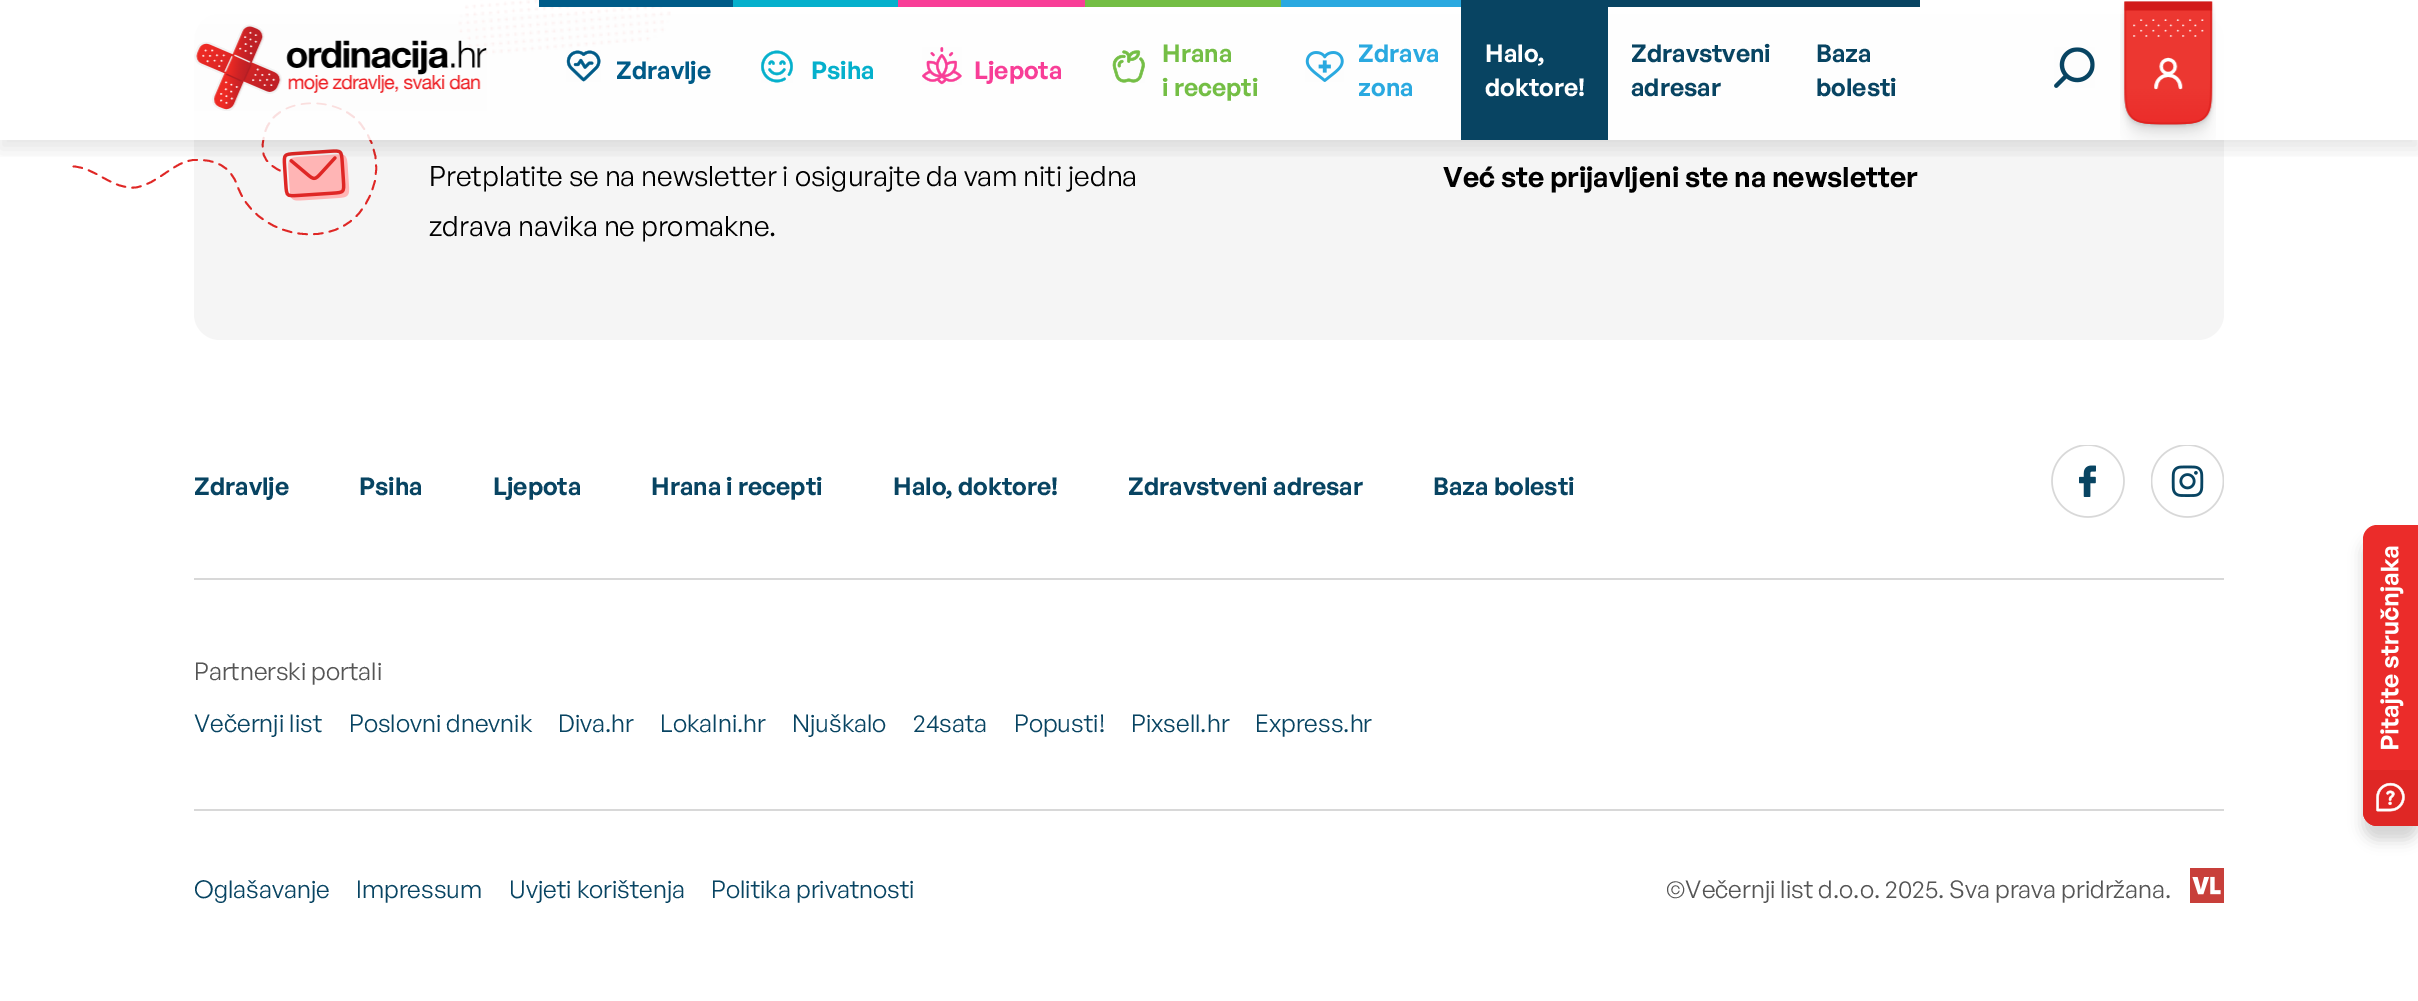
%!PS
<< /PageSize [2418 1001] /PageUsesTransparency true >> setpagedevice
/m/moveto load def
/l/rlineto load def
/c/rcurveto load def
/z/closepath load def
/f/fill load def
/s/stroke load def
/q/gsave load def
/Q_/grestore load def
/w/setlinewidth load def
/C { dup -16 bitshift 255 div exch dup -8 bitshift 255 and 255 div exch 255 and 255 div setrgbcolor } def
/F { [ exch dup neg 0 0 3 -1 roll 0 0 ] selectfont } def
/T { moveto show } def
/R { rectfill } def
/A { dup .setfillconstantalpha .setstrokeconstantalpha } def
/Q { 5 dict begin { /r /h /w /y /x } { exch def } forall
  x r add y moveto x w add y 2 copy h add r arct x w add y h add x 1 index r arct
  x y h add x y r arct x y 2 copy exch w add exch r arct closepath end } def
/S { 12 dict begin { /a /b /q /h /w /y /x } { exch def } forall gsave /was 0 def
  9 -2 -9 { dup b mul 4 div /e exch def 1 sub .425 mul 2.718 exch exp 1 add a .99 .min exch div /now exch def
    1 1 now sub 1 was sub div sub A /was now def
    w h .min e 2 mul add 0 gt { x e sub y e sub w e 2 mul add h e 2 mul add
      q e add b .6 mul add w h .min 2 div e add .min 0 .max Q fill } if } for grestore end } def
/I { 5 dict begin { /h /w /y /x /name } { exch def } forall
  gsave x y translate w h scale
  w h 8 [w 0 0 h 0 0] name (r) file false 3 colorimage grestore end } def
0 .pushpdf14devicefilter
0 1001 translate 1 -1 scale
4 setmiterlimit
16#FFFFFF C
0 0 2418 1001 R
16#F5F5F5 C
194 14 2030 326 26 Q f
(9.rgb) 458 0 213 55 I
(10.rgb) 282 149 68 52 I
16#DF2725 C
1.8 w
1 setlinecap
[8.75 7] 0 setdash
73.5 166.5 m 22 1 38.5 23 61.5 21 c 22.5 -2.5 39 -27 59.5 -27.5 c 20.5 -1 36 6 43 26 c 16.5 48.5 86.5 64.5 119.5 29.5 c 25 -27 26 -66.5 1.5 -94 c -24.5 -27 -84 -24.5 -93.5 11 c -4.5 16.5 -5.5 30.5 20.5 40.5 c s
q
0 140 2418 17 rectclip
16#000000 C
0 9 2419 140 0 9 .1 S
Q_
0.85 A
16#FFFFFF C
194 0 2030 140 R
1 A
(1.rgb) 194 24 293 87 I
16#005B88 C
539 0 194 7 R
(2.rgb) 566 50 35 32 I
/GeneralSans-SemiBold 24.5 F
(Zdravlje) 616 79 T
16#05B0CC C
733 0 165 7 R
(3.rgb) 761 50 32 33 I
(Psiha) 811 79 T
16#F83E97 C
898 0 187 7 R
(4.rgb) 922 47 40 38 I
(Ljepota) 974 79 T
16#74BE45 C
1085 0 196 7 R
(5.rgb) 1112 50 33 33 I
(Hrana) 1162 62 T
(i recepti) 1162 96 T
16#2AA9E0 C
1281 0 180 7 R
(6.rgb) 1305 51 39 31 I
(Zdrava) 1358 62 T
(zona) 1358 96 T
16#084462 C
1461 0 147 140 R
16#FFFFFF C
(Halo,) 1485 62 T
(doktore!) 1485 96 T
16#084462 C
1608 0 312 7 R
(Zdravstveni) 1631 62 T
(adresar) 1631 96 T
(Baza) 1816 62 T
(bolesti) 1816 96 T
(7.rgb) 2054 47 41 41 I
(8.rgb) 2120 1 96 139 I
/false-Regular 28 F
16#000000 C
(Pretplatite se na newsletter i osigurajte da vam niti jedna) 429 186 T
(zdrava navika ne promakne.) 429 236 T
/GeneralSans-SemiBold 28 F
(Već ste prijavljeni ste na newsletter) 1443 187 T
/GeneralSans-SemiBold 24.5 F
16#084462 C
(Zdravlje) 194 495 T
(Psiha) 359 495 T
(Ljepota) 493 495 T
(Hrana i recepti) 651 495 T
(Halo, doktore!) 893 495 T
(Zdravstveni adresar) 1128 495 T
(Baza bolesti) 1433 495 T
(11.rgb) 2051 445 74 73 I
(12.rgb) 2151 445 73 73 I
16#D8D8D8 C
194 578 2030 2 R
/false-Regular 24.5 F
16#555555 C
(Partnerski portali) 194 680 T
16#084462 C
(Večernji list) 194 732 T
(Poslovni dnevnik) 349 732 T
(Diva.hr) 558 732 T
(Lokalni.hr) 660 732 T
(Njuškalo) 792 732 T
(24sata) 913 732 T
(Popusti!) 1014 732 T
(Pixsell.hr) 1131 732 T
(Express.hr) 1255 732 T
16#D8D8D8 C
194 809 2030 2 R
16#084462 C
(Oglašavanje) 194 898 T
(Impressum) 356 898 T
(Uvjeti korištenja) 509 898 T
(Politika privatnosti) 711 898 T
16#555555 C
(©Večernji list d.o.o. 2025. Sva prava pridržana.) 1666 898 T
(13.rgb) 2190 868 34 35 I
16#000000 C
2363 539 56 301 14 7 .17 S
16#EB2C2A C
2377 525 m 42 0 l 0 301 l -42 0 l -7.5 0 -14 -6.5 -14 -14 c 0 -273 l 0 -7.5 6.5 -14 14 -14 c z f
(14.rgb) 2380 546 24 203 I
16#DF2725 C
2363 770 m 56 0 l 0 56 l -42 0 l -7.5 0 -14 -6.5 -14 -14 c z f
(15.rgb) 2376 782 29 30 I
.poppdf14devicefilter showpage
